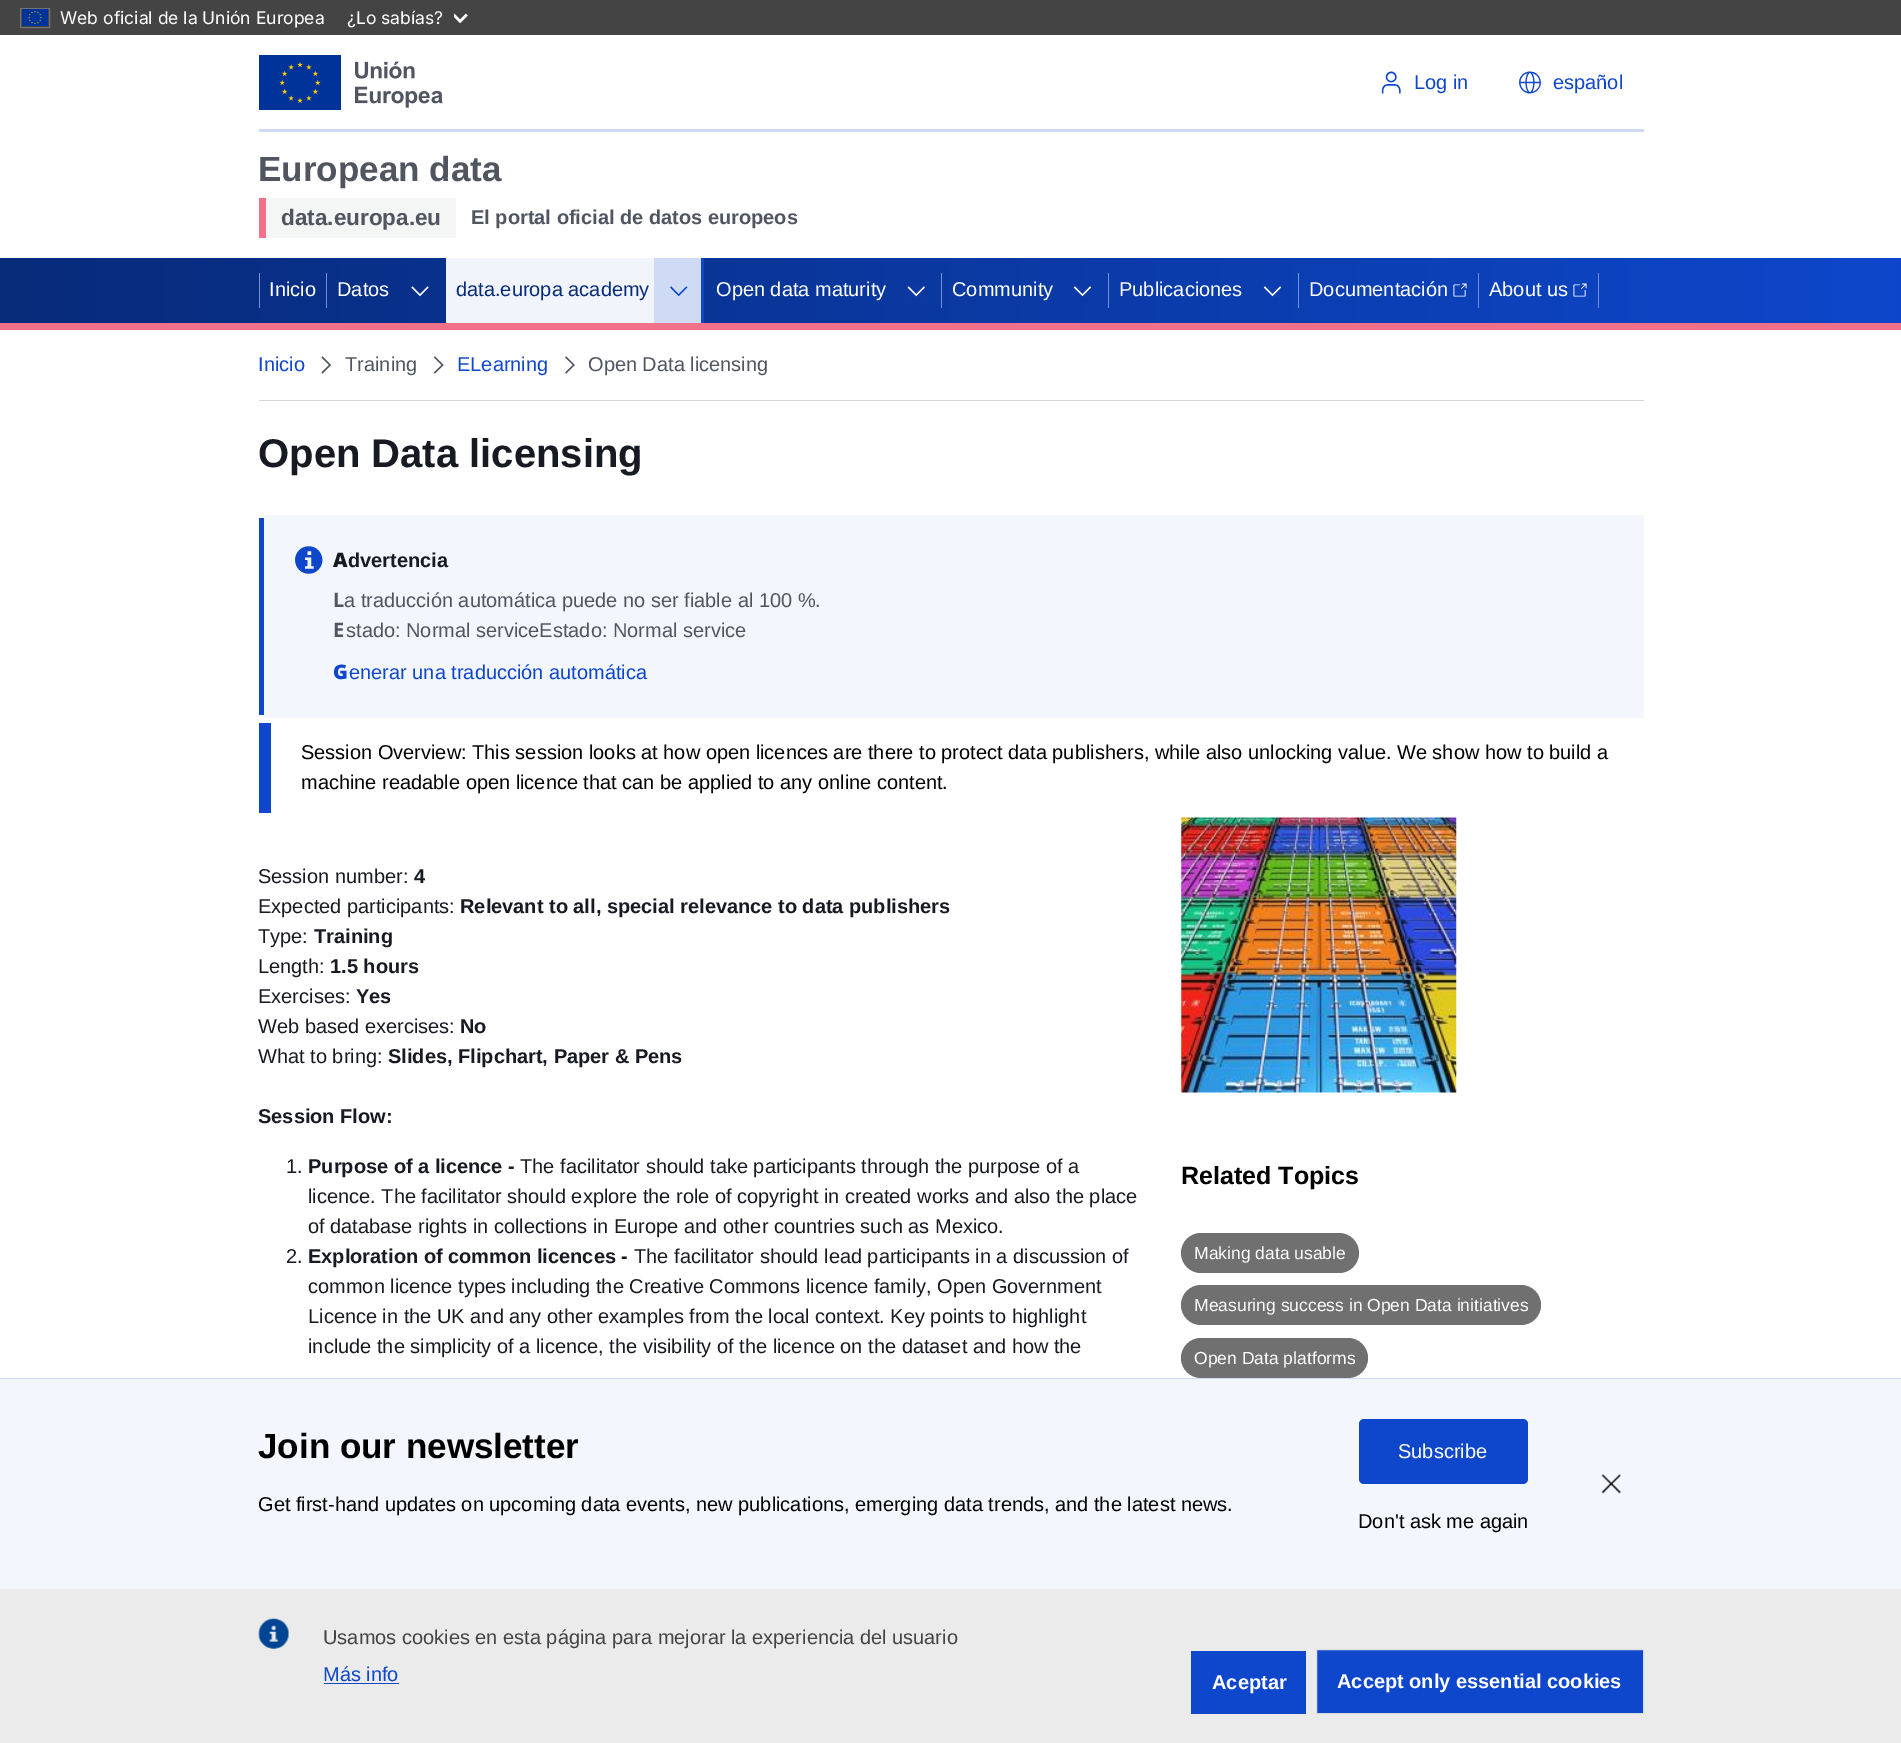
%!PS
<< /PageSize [1901 1743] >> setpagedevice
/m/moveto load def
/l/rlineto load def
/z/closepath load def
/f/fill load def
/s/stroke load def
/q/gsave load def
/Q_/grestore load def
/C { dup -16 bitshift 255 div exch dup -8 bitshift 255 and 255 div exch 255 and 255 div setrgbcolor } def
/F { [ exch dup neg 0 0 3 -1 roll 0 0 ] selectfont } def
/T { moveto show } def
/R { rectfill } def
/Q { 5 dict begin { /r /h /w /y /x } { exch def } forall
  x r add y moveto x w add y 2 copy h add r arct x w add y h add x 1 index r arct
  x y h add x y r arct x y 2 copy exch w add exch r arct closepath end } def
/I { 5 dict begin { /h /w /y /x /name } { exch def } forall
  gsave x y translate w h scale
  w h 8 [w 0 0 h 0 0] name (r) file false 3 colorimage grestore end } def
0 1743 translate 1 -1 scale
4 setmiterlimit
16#FFFFFF C
0 0 1901 1743 R
16#444444 C
0 0 1901 35 R
16#737373 C
20.5 8.5 29 19 rectstroke
(1.rgb) 22 9 26 17 I
/Inter-Regular 17.5 F
16#FFFFFF C
(Web oficial de la Unión Europea) 60 24 T
(¿Lo sabías?) 347 24 T
(2.rgb) 454 13 14 11 I
(3.rgb) 259 55 184 55 I
(4.rgb) 1381 71 20 23 I
/LiberationSans-Regular 20 F
16#0E47CB C
(Log in) 1414 89 T
(5.rgb) 1519 71 22 23 I
(español) 1553 89 T
16#CFDAF5 C
259 129 1385 3 R
/LiberationSans-Bold 35 F
16#515560 C
(European data) 258 181 T
16#F4F5F5 C
266 198 190 40 R
16#F2718A C
259 198 7 40 R
/LiberationSans-Bold 22.5 F
16#515560 C
(data.europa.eu) 281 225 T
/LiberationSans-Bold 20 F
(El portal oficial de datos europeos) 471 224 T
q 0 258 m 1901 0 l 0 65 l -1901 0 l z clip newpath
<< /ShadingType 2 /ColorSpace /DeviceRGB /Coords [0 290 1901 290] /Extend [true true] /Function << /FunctionType 2 /Domain [0 1] /C0 [.031 .169 .478] /C1 [.055 .278 .796] /N 1 >> >> shfill Q_
16#F2718A C
0 323 1901 7 R
16#6E91E0 C
259 273 1 35 R
/LiberationSans-Regular 20 F
16#FFFFFF C
(Inicio) 269 296 T
16#6E91E0 C
326 273 1 35 R
16#FFFFFF C
(Datos) 337 296 T
(6.rgb) 411 286 18 11 I
16#CFDAF5 C
654 258 47 65 R
16#0E47CB C
701 258 3 65 R
16#F1F5FB C
446 258 208 65 R
16#082B7A C
(data.europa academy) 456 296 T
(7.rgb) 670 286 18 11 I
16#FFFFFF C
(Open data maturity) 716 296 T
(8.rgb) 907 286 18 11 I
16#6E91E0 C
941 273 1 35 R
16#FFFFFF C
(Community) 952 296 T
(9.rgb) 1073 286 19 11 I
16#6E91E0 C
1108 273 1 35 R
16#FFFFFF C
(Publicaciones) 1119 296 T
(10.rgb) 1263 286 19 11 I
16#6E91E0 C
1298 273 1 35 R
16#FFFFFF C
(Documentación) 1309 296 T
(11.rgb) 1453 283 14 14 I
16#6E91E0 C
1478 273 1 35 R
16#FFFFFF C
(About us) 1489 296 T
(12.rgb) 1573 283 14 14 I
16#6E91E0 C
1598 273 1 35 R
16#D4D5D7 C
259 400 1385 1 R
16#0E47CB C
(Inicio) 258 371 T
(13.rgb) 321 356 10 18 I
16#515560 C
(Training) 345 371 T
(14.rgb) 433 356 11 18 I
16#0E47CB C
(ELearning) 457 371 T
(15.rgb) 565 356 10 18 I
16#515560 C
(Open Data licensing) 588 371 T
/LiberationSans-Bold 40 F
16#171A22 C
(Open Data licensing) 258 467 T
16#F3F6FC C
264 515 1380 203 R
16#0E47CB C
259 518 5 197 R
(16.rgb) 295 546 28 28 I
/NotoSans-Black 20 F
16#171A22 C
(A) 333 567 T
/LiberationSans-Bold 20 F
(dvertencia) 348 567 T
/NotoSans-Bold 20 F
16#515560 C
(L) 333 607 T
/LiberationSans-Regular 20 F
(a traducción automática puede no ser fiable al 100 %.) 344 607 T
/NotoSans-Bold 20 F
(E) 333 637 T
/LiberationSans-Regular 20 F
(stado: Normal serviceEstado: Normal service) 346 637 T
/NotoSans-Black 20 F
16#0E47CB C
(G) 333 679 T
/LiberationSans-Regular 20 F
(enerar una traducción automática) 349 679 T
259 723 12 90 R
16#000000 C
(Session Overview: This session looks at how open licences are there to protect data publishers, while also unlocking value. We show how to build a) 301 759 T
(machine readable open licence that can be applied to any online content.) 301 789 T
16#171A22 C
(Session number:) 258 883 T
/LiberationSans-Bold 20 F
(4) 414 883 T
/LiberationSans-Regular 20 F
(Expected participants:) 258 913 T
/LiberationSans-Bold 20 F
(Relevant to all, special relevance to data publishers) 460 913 T
/LiberationSans-Regular 20 F
(Type:) 258 943 T
/LiberationSans-Bold 20 F
(Training) 314 943 T
/LiberationSans-Regular 20 F
(Length:) 258 973 T
/LiberationSans-Bold 20 F
(1.5 hours) 330 973 T
/LiberationSans-Regular 20 F
(Exercises:) 258 1003 T
/LiberationSans-Bold 20 F
(Yes) 356 1003 T
/LiberationSans-Regular 20 F
(Web based exercises:) 258 1033 T
/LiberationSans-Bold 20 F
(No) 460 1033 T
/LiberationSans-Regular 20 F
(What to bring:) 258 1063 T
/LiberationSans-Bold 20 F
(Slides, Flipchart, Paper & Pens) 388 1063 T
(Session Flow:) 258 1123 T
/LiberationSans-Regular 20 F
(1.) 286 1173 T
/LiberationSans-Bold 20 F
(Purpose of a licence -) 308 1173 T
/LiberationSans-Regular 20 F
(The facilitator should take participants through the purpose of a) 520 1173 T
(licence. The facilitator should explore the role of copyright in created works and also the place) 308 1203 T
(of database rights in collections in Europe and other countries such as Mexico.) 308 1233 T
(2.) 286 1263 T
/LiberationSans-Bold 20 F
(Exploration of common licences -) 308 1263 T
/LiberationSans-Regular 20 F
(The facilitator should lead participants in a discussion of) 634 1263 T
(common licence types including the Creative Commons licence family, Open Government) 308 1293 T
(Licence in the UK and any other examples from the local context. Key points to highlight) 308 1323 T
(include the simplicity of a licence, the visibility of the licence on the dataset and how the) 308 1353 T
(17.rgb) 1181 817 276 276 I
/LiberationSans-Bold 25 F
16#000000 C
(Related Topics) 1181 1184 T
16#707070 C
1181 1233 178 40 20 Q f
/LiberationSans-Regular 17.5 F
16#FFFFFF C
(Making data usable) 1194 1259 T
16#707070 C
1181 1285 360 40 20 Q f
16#FFFFFF C
(Measuring success in Open Data initiatives) 1194 1311 T
16#707070 C
1181 1338 187 40 20 Q f
16#FFFFFF C
(Open Data platforms) 1194 1364 T
16#F3F6FC C
0 1379 1901 210 R
16#CFDAF5 C
0 1378 1901 1 R
/LiberationSans-Bold 35 F
16#000000 C
(Join our newsletter) 258 1458 T
/LiberationSans-Regular 20 F
(Get first-hand updates on upcoming data events, new publications, emerging data trends, and the latest news.) 258 1511 T
16#0E47CB C
1359 1419 169 65 5 Q f
16#FFFFFF C
(Subscribe) 1398 1458 T
16#000000 C
(Don't ask me again) 1358 1528 T
(18.rgb) 1601 1474 20 20 I
16#EBEBEB C
0 1589 1901 154 R
(19.rgb) 258 1618 31 31 I
16#444444 C
(Usamos cookies en esta página para mejorar la experiencia del usuario) 323 1644 T
16#0E47CB C
(Más info) 323 1681 T
324 1683 75 1 R
1191 1651 115 63 R
/LiberationSans-Bold 20 F
16#FFFFFF C
(Aceptar) 1212 1689 T
16#0E47CB C
1316.5 1649.5 m 327 0 l 0 64 l -327 0 l z q f Q_
16#DCDCDC C
s
16#FFFFFF C
(Accept only essential cookies) 1337 1688 T
showpage
